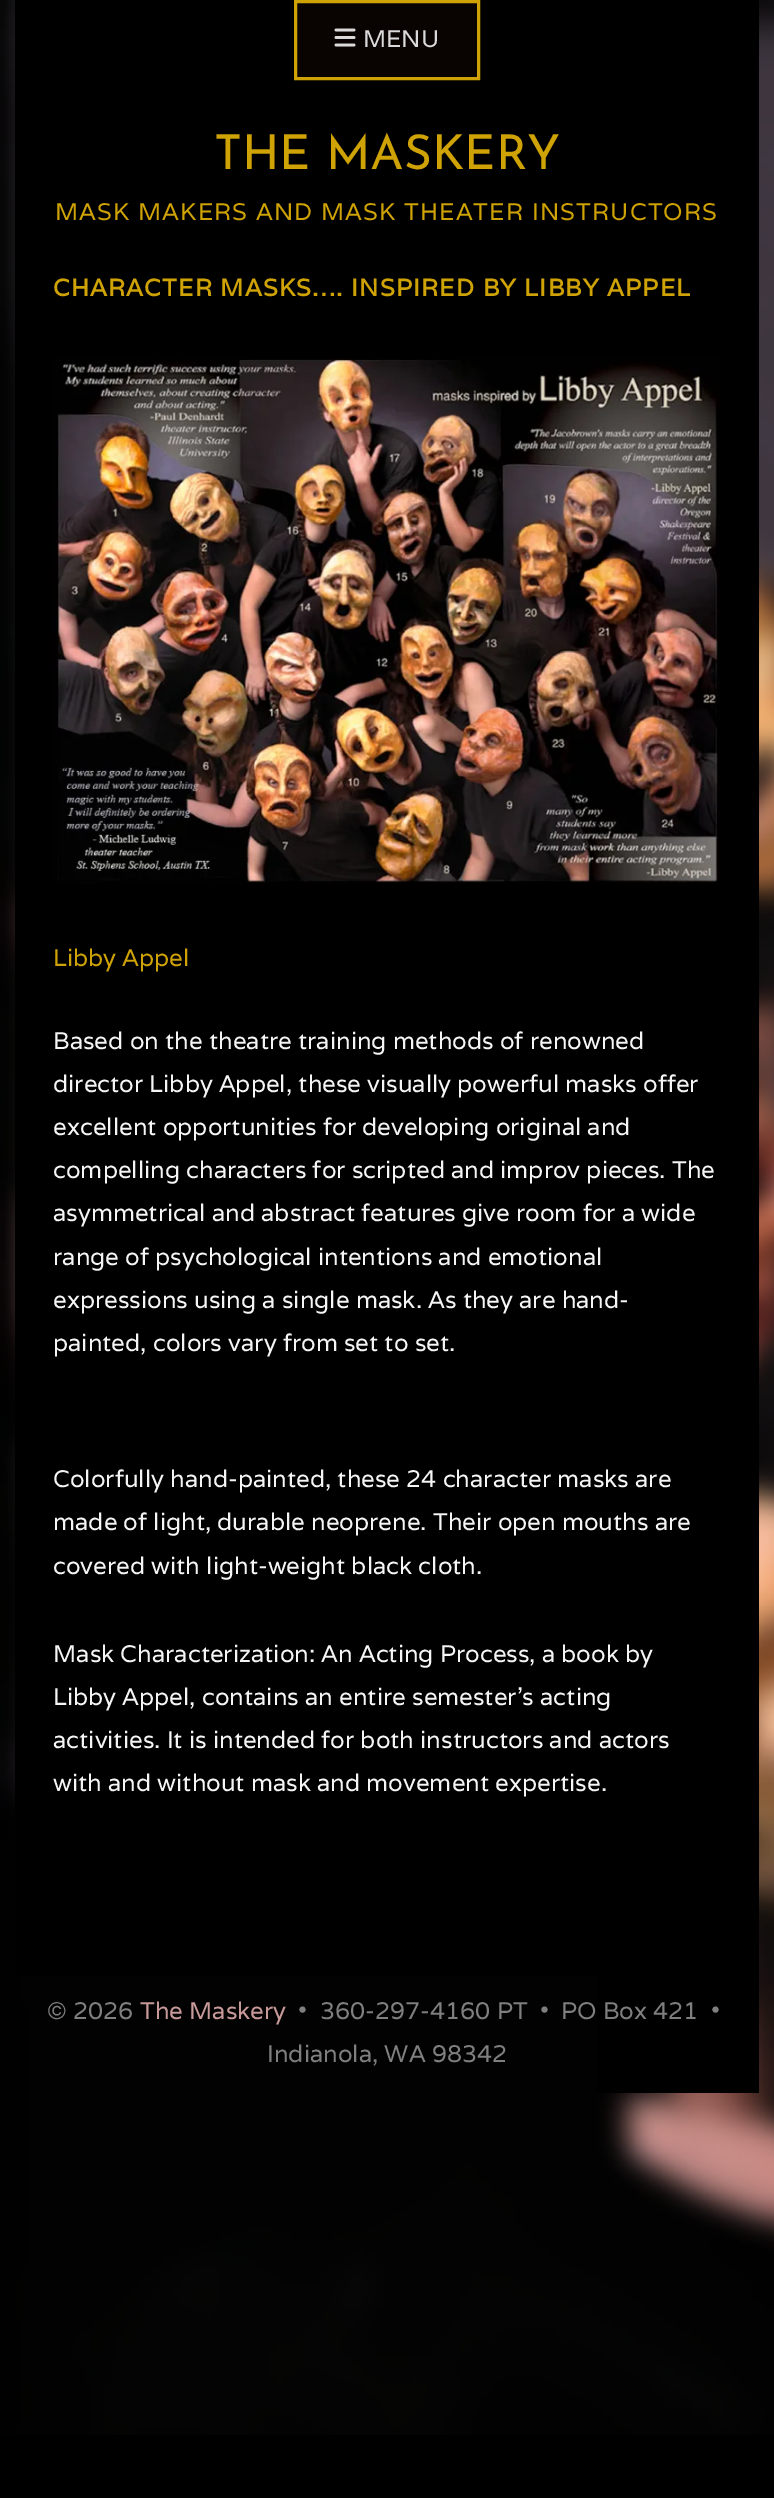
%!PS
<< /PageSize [774 2498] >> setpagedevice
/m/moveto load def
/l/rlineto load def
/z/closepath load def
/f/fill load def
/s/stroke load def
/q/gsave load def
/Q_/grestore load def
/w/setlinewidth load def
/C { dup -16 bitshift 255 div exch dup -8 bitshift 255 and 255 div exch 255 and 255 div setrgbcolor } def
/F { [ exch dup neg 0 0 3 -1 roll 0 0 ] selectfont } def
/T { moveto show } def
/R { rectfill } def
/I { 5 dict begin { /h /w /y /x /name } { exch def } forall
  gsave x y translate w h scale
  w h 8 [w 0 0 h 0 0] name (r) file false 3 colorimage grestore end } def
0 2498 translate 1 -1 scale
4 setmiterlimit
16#000000 C
0 0 774 2498 R
(1.rgb) 0 0 774 2435 I
15 0 744 1976 R
16#090401 C
295.5 1.5 m 183 0 l 0 77 l -183 0 l z q f Q_
16#CFA205 C
3 w
s
(2.rgb) 334 28 22 19 I
/Varela-Regular 24 F
16#DBDADA C
(MENU) 363 47 T
/JosefinSans-Thin 48 F
16#CFA205 C
(THE MASKERY) 214 169 T
/Varela-Regular 24 F
55 220 m 1.2 0 (MASK MAKERS AND MASK THEATER INSTRUCTORS) ashow
/Varela-Bold 24 F
53 296 m 1.2 0 (CHARACTER MASKS…. INSPIRED BY LIBBY APPEL) ashow
(3.rgb) 53 358 667 526 I
/Varela-Regular 24 F
(Libby Appel) 53 966 T
16#F5F5F5 C
(Based on the theatre training methods of renowned) 53 1049 T
(director Libby Appel, these visually powerful masks offer) 53 1092 T
(excellent opportunities for developing original and) 53 1135 T
(compelling characters for scripted and improv pieces. The) 53 1178 T
(asymmetrical and abstract features give room for a wide) 53 1221 T
(range of psychological intentions and emotional) 53 1265 T
(expressions using a single mask. As they are hand-) 53 1308 T
(painted, colors vary from set to set.) 53 1351 T
(Colorfully hand-painted, these 24 character masks are) 53 1487 T
(made of light, durable neoprene. Their open mouths are) 53 1530 T
(covered with light-weight black cloth.) 53 1574 T
(Mask Characterization: An Acting Process, a book by) 53 1662 T
(Libby Appel, contains an entire semester’s acting) 53 1705 T
(activities. It is intended for both instructors and actors) 53 1748 T
(with and without mask and movement expertise.) 53 1791 T
16#000000 C
597 1976 162 117 R
16#7F7F7F C
(© 2026) 47 2019 T
16#C89999 C
(The Maskery) 140 2019 T
16#7F7F7F C
(•) 298 2019 T
(360-297-4160 PT) 320 2019 T
(•) 540 2019 T
(PO Box 421) 561 2019 T
(•) 711 2019 T
(Indianola, WA 98342) 267 2062 T
showpage
